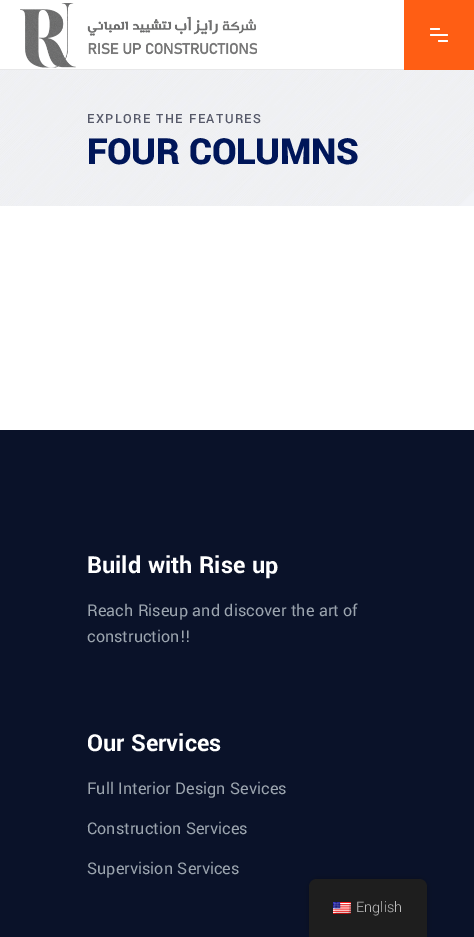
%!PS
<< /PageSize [474 937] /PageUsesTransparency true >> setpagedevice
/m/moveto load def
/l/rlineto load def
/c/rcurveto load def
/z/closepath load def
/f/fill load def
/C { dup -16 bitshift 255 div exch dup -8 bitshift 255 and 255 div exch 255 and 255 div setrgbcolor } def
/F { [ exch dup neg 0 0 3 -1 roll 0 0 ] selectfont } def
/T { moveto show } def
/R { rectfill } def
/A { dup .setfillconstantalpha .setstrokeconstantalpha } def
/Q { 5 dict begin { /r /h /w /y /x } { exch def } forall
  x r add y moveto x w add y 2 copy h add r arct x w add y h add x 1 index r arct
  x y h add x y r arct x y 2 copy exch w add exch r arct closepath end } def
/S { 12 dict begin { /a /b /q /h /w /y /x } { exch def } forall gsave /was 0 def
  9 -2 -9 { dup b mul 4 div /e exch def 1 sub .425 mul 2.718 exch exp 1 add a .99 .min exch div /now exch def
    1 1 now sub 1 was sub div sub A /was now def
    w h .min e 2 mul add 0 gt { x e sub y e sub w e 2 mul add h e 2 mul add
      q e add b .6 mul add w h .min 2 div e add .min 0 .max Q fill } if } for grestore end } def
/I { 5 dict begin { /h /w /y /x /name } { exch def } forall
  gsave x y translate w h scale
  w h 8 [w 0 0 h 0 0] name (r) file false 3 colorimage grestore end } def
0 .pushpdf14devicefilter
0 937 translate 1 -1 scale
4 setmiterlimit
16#FFFFFF C
0 0 474 937 R
16#E8E8E9 C
0 69 404 1 R
(1.rgb) 20 3 237 65 I
16#FF5E14 C
404 0 70 70 R
16#FFFFFF C
430 28 10 2 1 Q f
430 34 18 2 1 Q f
438 40 10 2 1 Q f
(2.rgb) 0 70 474 136 I
/Yantramanav-Medium 14 F
16#565969 C
87 123 m 1.4 0 (EXPLORE THE FEATURES) ashow
/Yantramanav-Black 40 F
16#001659 C
87 164 m -.4 0 (FOUR COLUMNS) ashow
16#0A1229 C
0 430 474 507 R
/Yantramanav-Bold 26 F
16#FFFFFF C
(Build with Rise up) 87 573 T
/Yantramanav-Regular 18 F
16#9CA5AF C
(Reach Riseup and discover the art of) 87 616 T
(construction!!) 87 642 T
/Yantramanav-Bold 26 F
16#FFFFFF C
(Our Services) 87 751 T
/Yantramanav-Regular 18 F
16#9CA5AF C
(Full Interior Design Sevices) 87 794 T
(Construction Services) 87 834 T
(Supervision Services) 87 874 T
16#000000 C
309 879 118 58 8 4 .25 S
16#1E1E1E C
317 879 m 102 0 l 4.5 0 8 3.5 8 8 c 0 50 l -118 0 l 0 -50 l 0 -4.5 3.5 -8 8 -8 c z f
(3.rgb) 333 902 18 12 I
/Yantramanav-Light 16 F
16#BDBDBD C
(English) 356 912 T
.poppdf14devicefilter showpage
